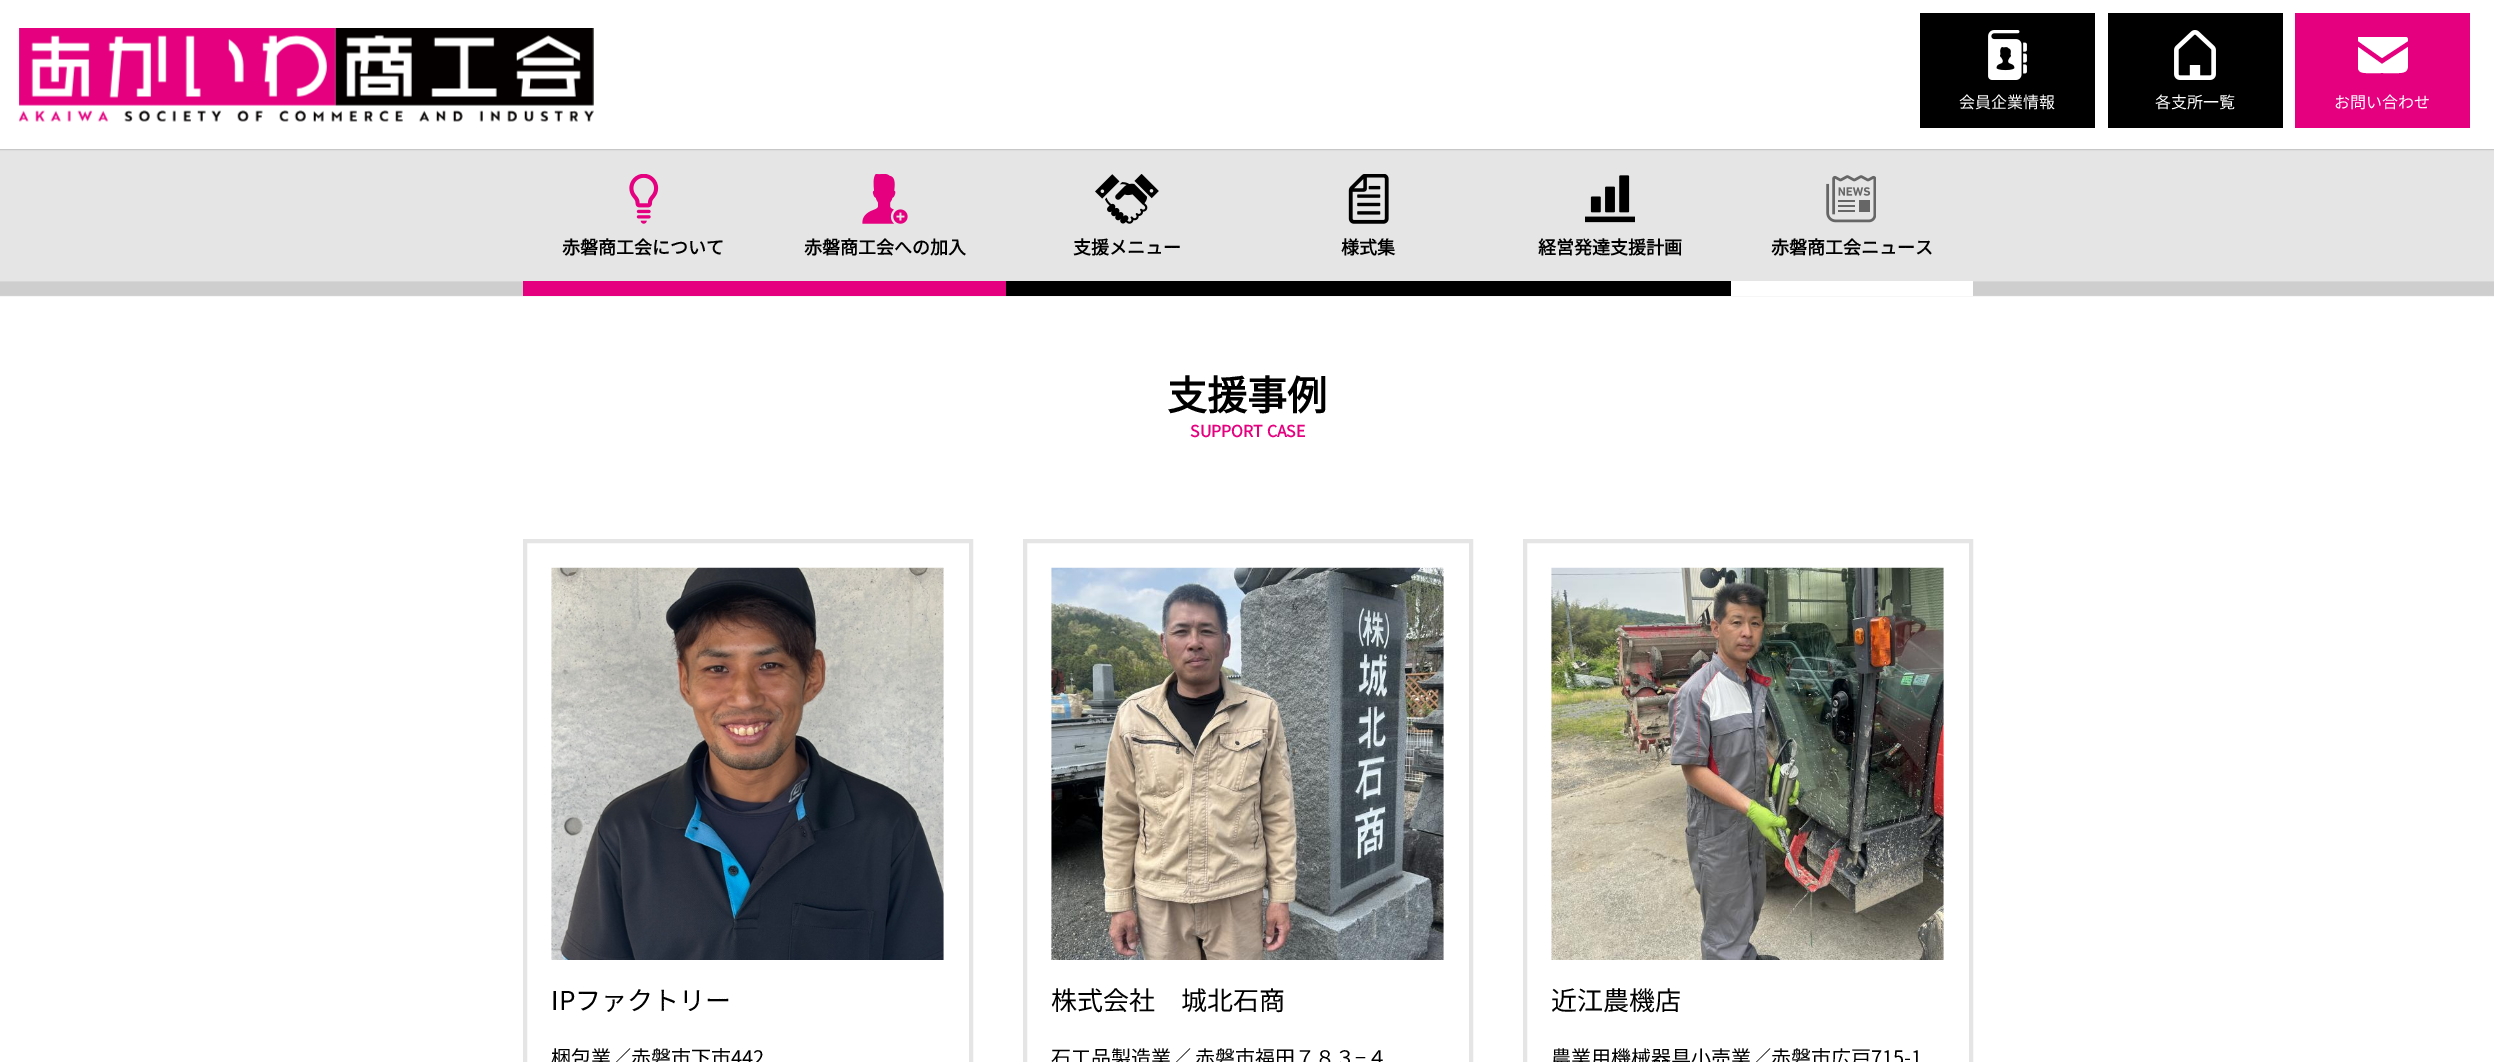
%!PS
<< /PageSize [2494 1062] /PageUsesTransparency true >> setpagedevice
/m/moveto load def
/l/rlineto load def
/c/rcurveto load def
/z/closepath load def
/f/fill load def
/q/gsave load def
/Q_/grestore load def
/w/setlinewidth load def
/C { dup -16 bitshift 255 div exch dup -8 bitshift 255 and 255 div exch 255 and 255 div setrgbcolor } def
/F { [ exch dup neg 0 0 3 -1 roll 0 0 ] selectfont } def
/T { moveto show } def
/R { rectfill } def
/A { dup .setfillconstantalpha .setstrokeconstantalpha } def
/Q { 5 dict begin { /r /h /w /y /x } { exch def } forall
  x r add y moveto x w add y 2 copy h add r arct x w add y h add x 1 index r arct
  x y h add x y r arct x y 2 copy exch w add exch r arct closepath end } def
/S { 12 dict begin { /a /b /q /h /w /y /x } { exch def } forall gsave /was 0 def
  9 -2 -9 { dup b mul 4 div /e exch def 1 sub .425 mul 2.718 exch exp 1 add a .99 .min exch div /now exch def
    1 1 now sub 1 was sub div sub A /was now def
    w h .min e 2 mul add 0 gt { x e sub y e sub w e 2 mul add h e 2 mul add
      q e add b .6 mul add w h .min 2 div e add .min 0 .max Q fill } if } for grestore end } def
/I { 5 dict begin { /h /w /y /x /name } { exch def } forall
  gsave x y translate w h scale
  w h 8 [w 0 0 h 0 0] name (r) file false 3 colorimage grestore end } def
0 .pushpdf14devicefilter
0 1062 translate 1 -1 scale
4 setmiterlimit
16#FFFFFF C
0 0 2494 1062 R
16#E5E5E5 C
0 149 2494 147 R
16#000000 C
0 0 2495 149 0 1 .4 S
16#FFFFFF C
0 0 2494 149 R
(1.rgb) 19 28 575 94 I
16#000000 C
1920 13 175 115 R
(2.rgb) 1988 30 39 50 I
/NotoSansJP-Thin 16 F
16#FFFFFF C
(会員企業情報) 1959 108 T
16#000000 C
2108 13 175 115 R
(3.rgb) 2174 30 42 50 I
16#FFFFFF C
(各支所一覧) 2155 108 T
16#E4007F C
2295 13 175 115 R
16#FFFFFF C
2406 37 m -47 0 l -1 0 -1 0 -1 1 c 0 3 l 24 17 l 26 -17 l 0 -1 0 -4 -2 -4 c z f
q
2358 30 50 50 rectclip
2358 47 m 0 29 -5 26 24 26 c 30 0 26 3 26 -26 c -26 17 l z f
Q_
(お問い合わせ) 2334 108 T
(4.rgb) 0 281 2494 16 I
16#E4007F C
523 281 483 15 R
(5.rgb) 629 174 30 50 I
/NotoSansJP-Bold 18 F
16#000000 C
(赤磐商工会について) 562 254 T
(6.rgb) 862 174 46 50 I
(赤磐商工会への加入) 804 254 T
1006 281 725 15 R
(7.rgb) 1095 174 64 50 I
(支援メニュー) 1073 254 T
(8.rgb) 1348 174 41 50 I
(様式集) 1341 254 T
(9.rgb) 1585 175 50 48 I
(経営発達支援計画) 1538 254 T
16#FFFFFF C
1731 281 242 15 R
(10.rgb) 1826 175 50 48 I
16#000000 C
(赤磐商工会ニュース) 1771 254 T
/NotoSansJP-Bold 40 F
(支援事例) 1167 410 T
/NotoSansJP-Bold 16 F
16#E4007F C
(SUPPORT CASE) 1190 437 T
16#E5E5E5 C
4 w
525 541 446 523 rectstroke
(11.rgb) 551 567 393 393 I
/NotoSansJP-Thin 26 F
16#000000 C
(IPファクトリー) 551 1010 T
/NotoSansJP-Thin 20 F
(梱包業／赤磐市下市442) 551 1065 T
16#E5E5E5 C
1025 541 446 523 rectstroke
(12.rgb) 1051 567 393 393 I
/NotoSansJP-Thin 26 F
16#000000 C
(株式会社　城北石商) 1051 1010 T
/NotoSansJP-Thin 20 F
(石工品製造業／ 赤磐市福田７８３−４) 1051 1065 T
16#E5E5E5 C
1525 541 446 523 rectstroke
(13.rgb) 1551 567 393 393 I
/NotoSansJP-Thin 26 F
16#000000 C
(近江農機店) 1551 1010 T
/NotoSansJP-Thin 20 F
(農業用機械器具小売業／赤磐市広戸715-1) 1551 1065 T
.poppdf14devicefilter showpage
